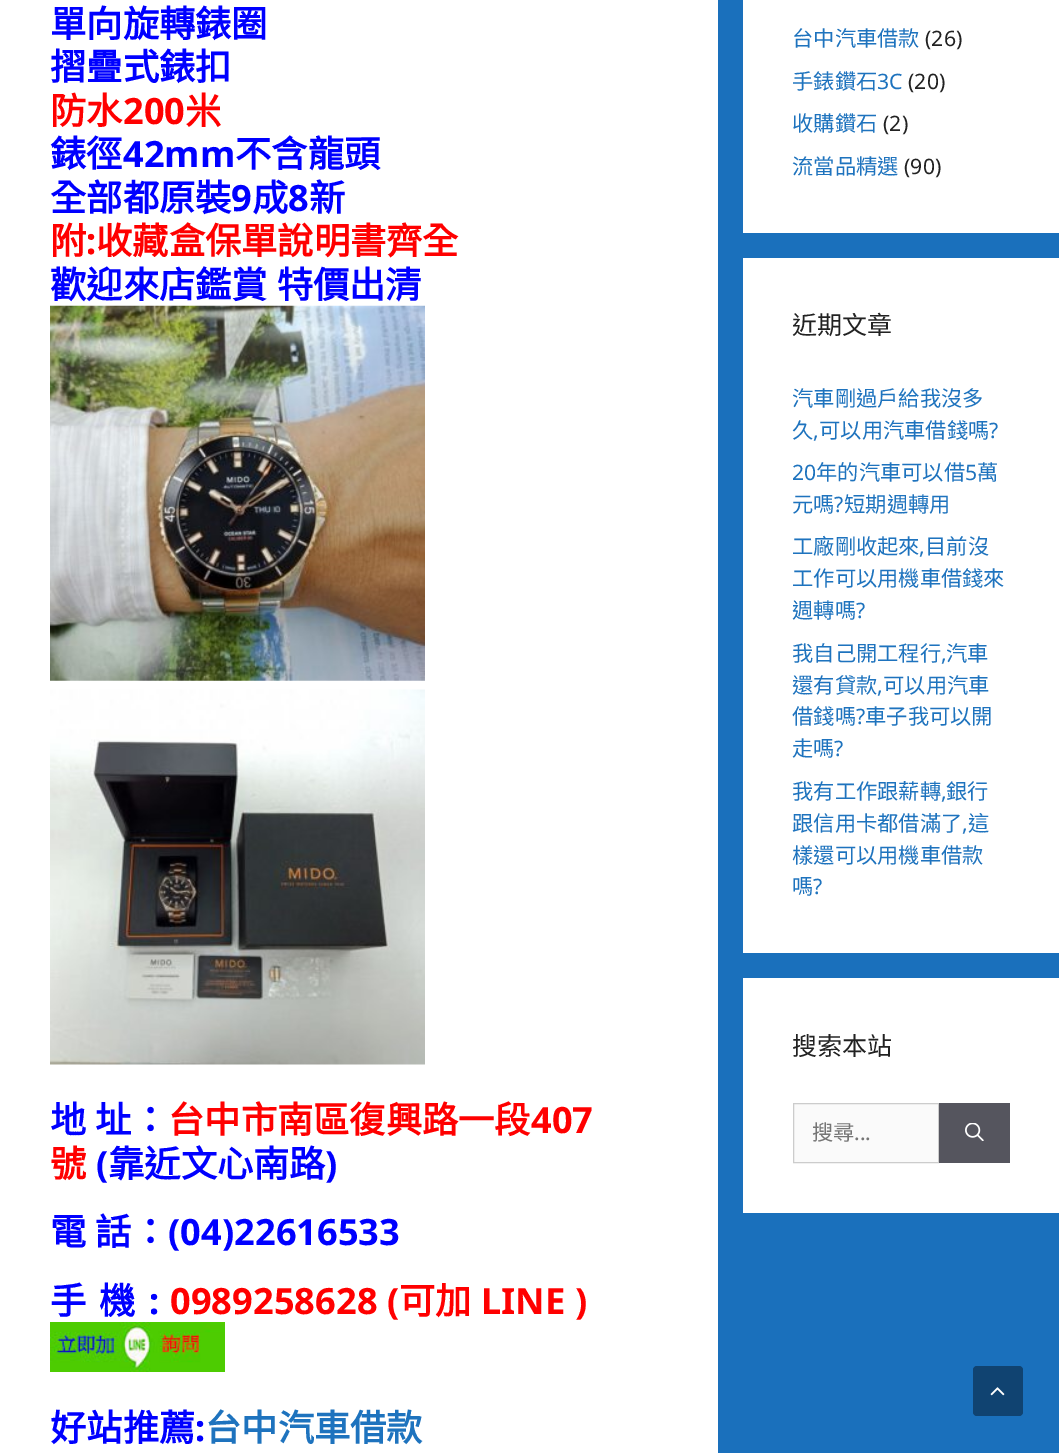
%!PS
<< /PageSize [1059 1453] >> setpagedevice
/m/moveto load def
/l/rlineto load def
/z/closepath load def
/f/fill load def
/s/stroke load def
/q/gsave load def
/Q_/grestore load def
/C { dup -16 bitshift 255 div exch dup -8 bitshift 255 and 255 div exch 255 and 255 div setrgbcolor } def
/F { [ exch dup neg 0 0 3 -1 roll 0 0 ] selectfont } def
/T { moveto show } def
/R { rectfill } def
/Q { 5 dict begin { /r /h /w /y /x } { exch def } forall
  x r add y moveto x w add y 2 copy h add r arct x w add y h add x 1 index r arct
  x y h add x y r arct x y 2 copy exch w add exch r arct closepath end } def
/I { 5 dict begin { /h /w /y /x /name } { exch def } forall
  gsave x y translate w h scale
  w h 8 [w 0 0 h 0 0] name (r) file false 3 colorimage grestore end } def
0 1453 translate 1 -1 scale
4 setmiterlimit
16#1A70BC C
0 0 1059 1453 R
16#FFFFFF C
0 0 718 1453 R
/NotoSansCJKTC-Bold 36.25 F
16#0000FF C
(單向旋轉錶圈) 50 37 T
(摺疊式錶扣) 50 80 T
16#FF0000 C
(防水) 50 124 T
/NotoSans-Bold 36.25 F
(200) 123 124 T
/NotoSansCJKTC-Bold 36.25 F
(米) 185 124 T
16#0000FF C
(錶徑) 50 167 T
/NotoSans-Bold 36.25 F
(42mm) 123 167 T
/NotoSansCJKTC-Bold 36.25 F
(不含龍頭) 235 167 T
(全部都原裝) 50 211 T
/NotoSans-Bold 36.25 F
(9) 231 211 T
/NotoSansCJKTC-Bold 36.25 F
(成) 252 211 T
/NotoSans-Bold 36.25 F
(8) 288 211 T
/NotoSansCJKTC-Bold 36.25 F
(新) 309 211 T
16#FF0000 C
(附) 50 254 T
/NotoSans-Bold 36.25 F
(:) 86 254 T
/NotoSansCJKTC-Bold 36.25 F
(收藏盒保單說明書齊全) 96 254 T
16#0000FF C
50 298 m 1 0 32 (歡迎來店鑑賞 特價出清) widthshow
(1.rgb) 50 305 375 376 I
(2.rgb) 50 689 375 376 I
50 1133 m 1 0 32 (地 址：) widthshow
16#FF0000 C
(台中市南區復興路一段) 168 1133 T
/NotoSans-Bold 36.25 F
(407) 531 1133 T
/NotoSansCJKTC-Bold 36.25 F
(號) 50 1177 T
/NotoSans-Bold 36.25 F
16#0000FF C
(\() 96 1177 T
/NotoSansCJKTC-Bold 36.25 F
(靠近文心南路) 108 1177 T
/NotoSans-Bold 36.25 F
(\)) 325 1177 T
/NotoSansCJKTC-Bold 36.25 F
50 1245 m 1 0 32 (電 話：) widthshow
/NotoSans-Bold 36.25 F
(\(04\)22616533) 168 1245 T
/NotoSansCJKTC-Bold 36.25 F
(手) 50 1314 T
(機) 99 1314 T
/NotoSans-Bold 36.25 F
(:) 149 1314 T
16#FF0000 C
(0989258628 \() 170 1314 T
/NotoSansCJKTC-Bold 36.25 F
(可加) 399 1314 T
/NotoSans-Bold 36.25 F
(LINE \)) 481 1314 T
(3.rgb) 50 1322 175 50 I
/NotoSansCJKTC-Bold 36.25 F
16#0000FF C
(好站推薦) 50 1441 T
/NotoSans-Bold 36.25 F
(:) 195 1441 T
/NotoSansCJKTC-Bold 36.25 F
16#1E73BE C
(台中汽車借款) 205 1441 T
16#FFFFFF C
743 0 316 233 R
/NotoSansCJKTC-Regular 21.25 F
16#1E73BE C
(台中汽車借款) 792 46 T
/NotoSans-Regular 21.25 F
16#222222 C
(\(26\)) 925 46 T
/NotoSansCJKTC-Regular 21.25 F
16#1E73BE C
(手錶鑽石) 792 89 T
/NotoSans-Regular 21.25 F
(3C) 877 89 T
16#222222 C
(\(20\)) 908 89 T
/NotoSansCJKTC-Regular 21.25 F
16#1E73BE C
(收購鑽石) 792 131 T
/NotoSans-Regular 21.25 F
16#222222 C
(\(2\)) 883 131 T
/NotoSansCJKTC-Regular 21.25 F
16#1E73BE C
(流當品精選) 792 174 T
/NotoSans-Regular 21.25 F
16#222222 C
(\(90\)) 904 174 T
16#FFFFFF C
743 258 316 695 R
/NotoSansCJKTC-Regular 25 F
16#222222 C
(近期文章) 792 334 T
/NotoSansCJKTC-Regular 21.25 F
16#1E73BE C
(汽車剛過戶給我沒多) 792 406 T
(久) 792 438 T
/NotoSans-Regular 21.25 F
(,) 813 438 T
/NotoSansCJKTC-Regular 21.25 F
(可以用汽車借錢嗎) 819 438 T
/NotoSans-Regular 21.25 F
(?) 989 438 T
(20) 792 480 T
/NotoSansCJKTC-Regular 21.25 F
(年的汽車可以借) 816 480 T
/NotoSans-Regular 21.25 F
(5) 965 480 T
/NotoSansCJKTC-Regular 21.25 F
(萬) 977 480 T
(元嗎) 792 512 T
/NotoSans-Regular 21.25 F
(?) 834 512 T
/NotoSansCJKTC-Regular 21.25 F
(短期週轉用) 844 512 T
(工廠剛收起來) 792 554 T
/NotoSans-Regular 21.25 F
(,) 919 554 T
/NotoSansCJKTC-Regular 21.25 F
(目前沒) 925 554 T
(工作可以用機車借錢來) 792 586 T
(週轉嗎) 792 618 T
/NotoSans-Regular 21.25 F
(?) 856 618 T
/NotoSansCJKTC-Regular 21.25 F
(我自己開工程行) 792 661 T
/NotoSans-Regular 21.25 F
(,) 941 661 T
/NotoSansCJKTC-Regular 21.25 F
(汽車) 946 661 T
(還有貸款) 792 693 T
/NotoSans-Regular 21.25 F
(,) 877 693 T
/NotoSansCJKTC-Regular 21.25 F
(可以用汽車) 883 693 T
(借錢嗎) 792 724 T
/NotoSans-Regular 21.25 F
(?) 856 724 T
/NotoSansCJKTC-Regular 21.25 F
(車子我可以開) 865 724 T
(走嗎) 792 756 T
/NotoSans-Regular 21.25 F
(?) 834 756 T
/NotoSansCJKTC-Regular 21.25 F
(我有工作跟薪轉) 792 799 T
/NotoSans-Regular 21.25 F
(,) 941 799 T
/NotoSansCJKTC-Regular 21.25 F
(銀行) 946 799 T
(跟信用卡都借滿了) 792 831 T
/NotoSans-Regular 21.25 F
(,) 962 831 T
/NotoSansCJKTC-Regular 21.25 F
(這) 968 831 T
(樣還可以用機車借款) 792 863 T
(嗎) 792 894 T
/NotoSans-Regular 21.25 F
(?) 813 894 T
16#FFFFFF C
743 978 316 235 R
/NotoSansCJKTC-Regular 25 F
16#222222 C
(搜索本站) 792 1055 T
16#FAFAFA C
793.5 1103.5 m 145 0 l 0 59 l -145 0 l z q f Q_
16#CCCCCC C
s
/NotoSansCJKTC-Regular 21.25 F
16#757575 C
(搜尋) 812 1140 T
/NotoSans-Regular 21.25 F
(...) 854 1140 T
16#55555E C
939 1103 71 60 R
(4.rgb) 965 1123 19 18 I
16#104371 C
973 1366 50 50 4 Q f
(5.rgb) 990 1387 15 9 I
showpage
